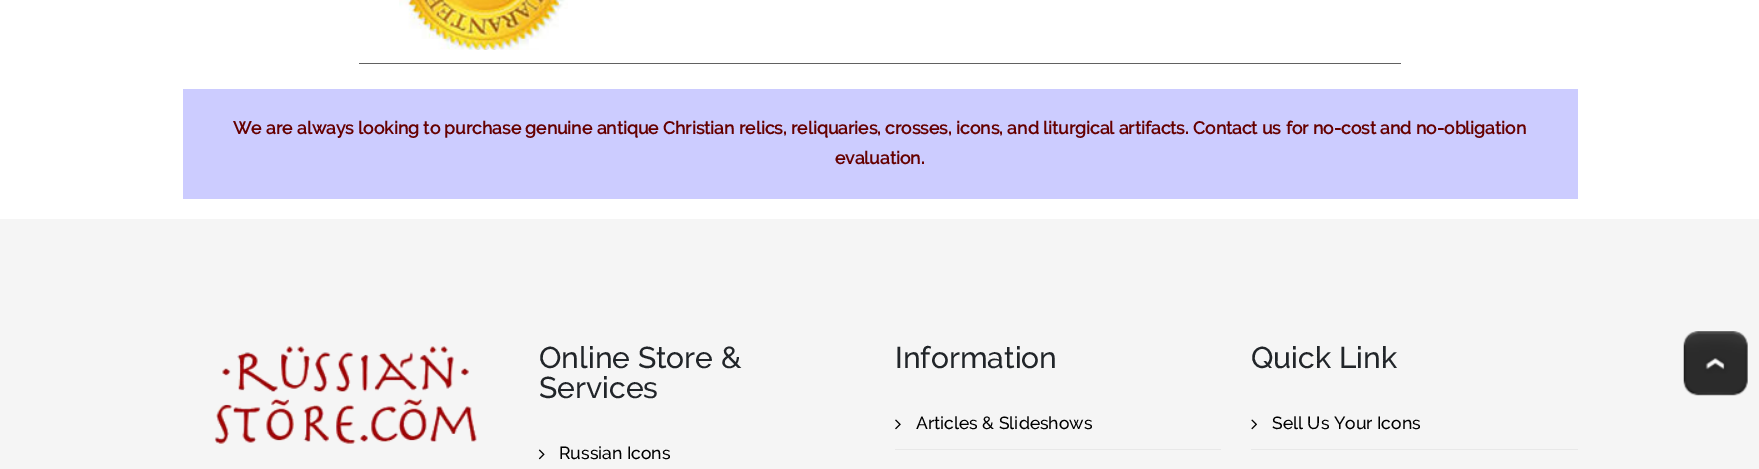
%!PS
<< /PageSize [1759 469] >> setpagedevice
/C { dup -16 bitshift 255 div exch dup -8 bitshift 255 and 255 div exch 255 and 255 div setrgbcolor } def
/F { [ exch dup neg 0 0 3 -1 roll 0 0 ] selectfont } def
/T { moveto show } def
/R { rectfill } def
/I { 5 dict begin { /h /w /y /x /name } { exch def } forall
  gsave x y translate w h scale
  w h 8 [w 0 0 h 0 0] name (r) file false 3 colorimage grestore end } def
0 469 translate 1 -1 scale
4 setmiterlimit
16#FFFFFF C
0 0 1759 469 R
16#616161 C
359 63 1042 1 R
(1.rgb) 399 0 169 50 I
16#CCCCFF C
183 89 1395 110 R
/Raleway-Bold 17.5 F
16#660000 C
(We are always looking to purchase genuine antique Christian relics, reliquaries, crosses, icons, and liturgical artifacts. Contact us for no-cost and no-obligation) 233 134 T
(evaluation.) 835 164 T
16#F5F5F5 C
0 219 1759 250 R
(2.rgb) 1683 331 65 65 I
(3.rgb) 214 346 263 98 I
/Raleway-Medium 30 F
16#212529 C
(Online Store &) 539 368 T
(Services) 539 398 T
(4.rgb) 538 449 7 11 I
/Raleway-Medium 17.5 F
16#000000 C
(Russian Icons) 559 459 T
/Raleway-Medium 30 F
16#212529 C
(Information) 895 368 T
16#E8E8E8 C
895 449 326 1 R
(5.rgb) 895 419 6 11 I
/Raleway-Medium 17.5 F
16#000000 C
(Articles & Slideshows) 916 429 T
/Raleway-Medium 30 F
16#212529 C
(Quick Link) 1251 368 T
16#E8E8E8 C
1251 449 327 1 R
(6.rgb) 1251 419 6 11 I
/Raleway-Medium 17.5 F
16#000000 C
(Sell Us Your Icons) 1272 429 T
showpage
